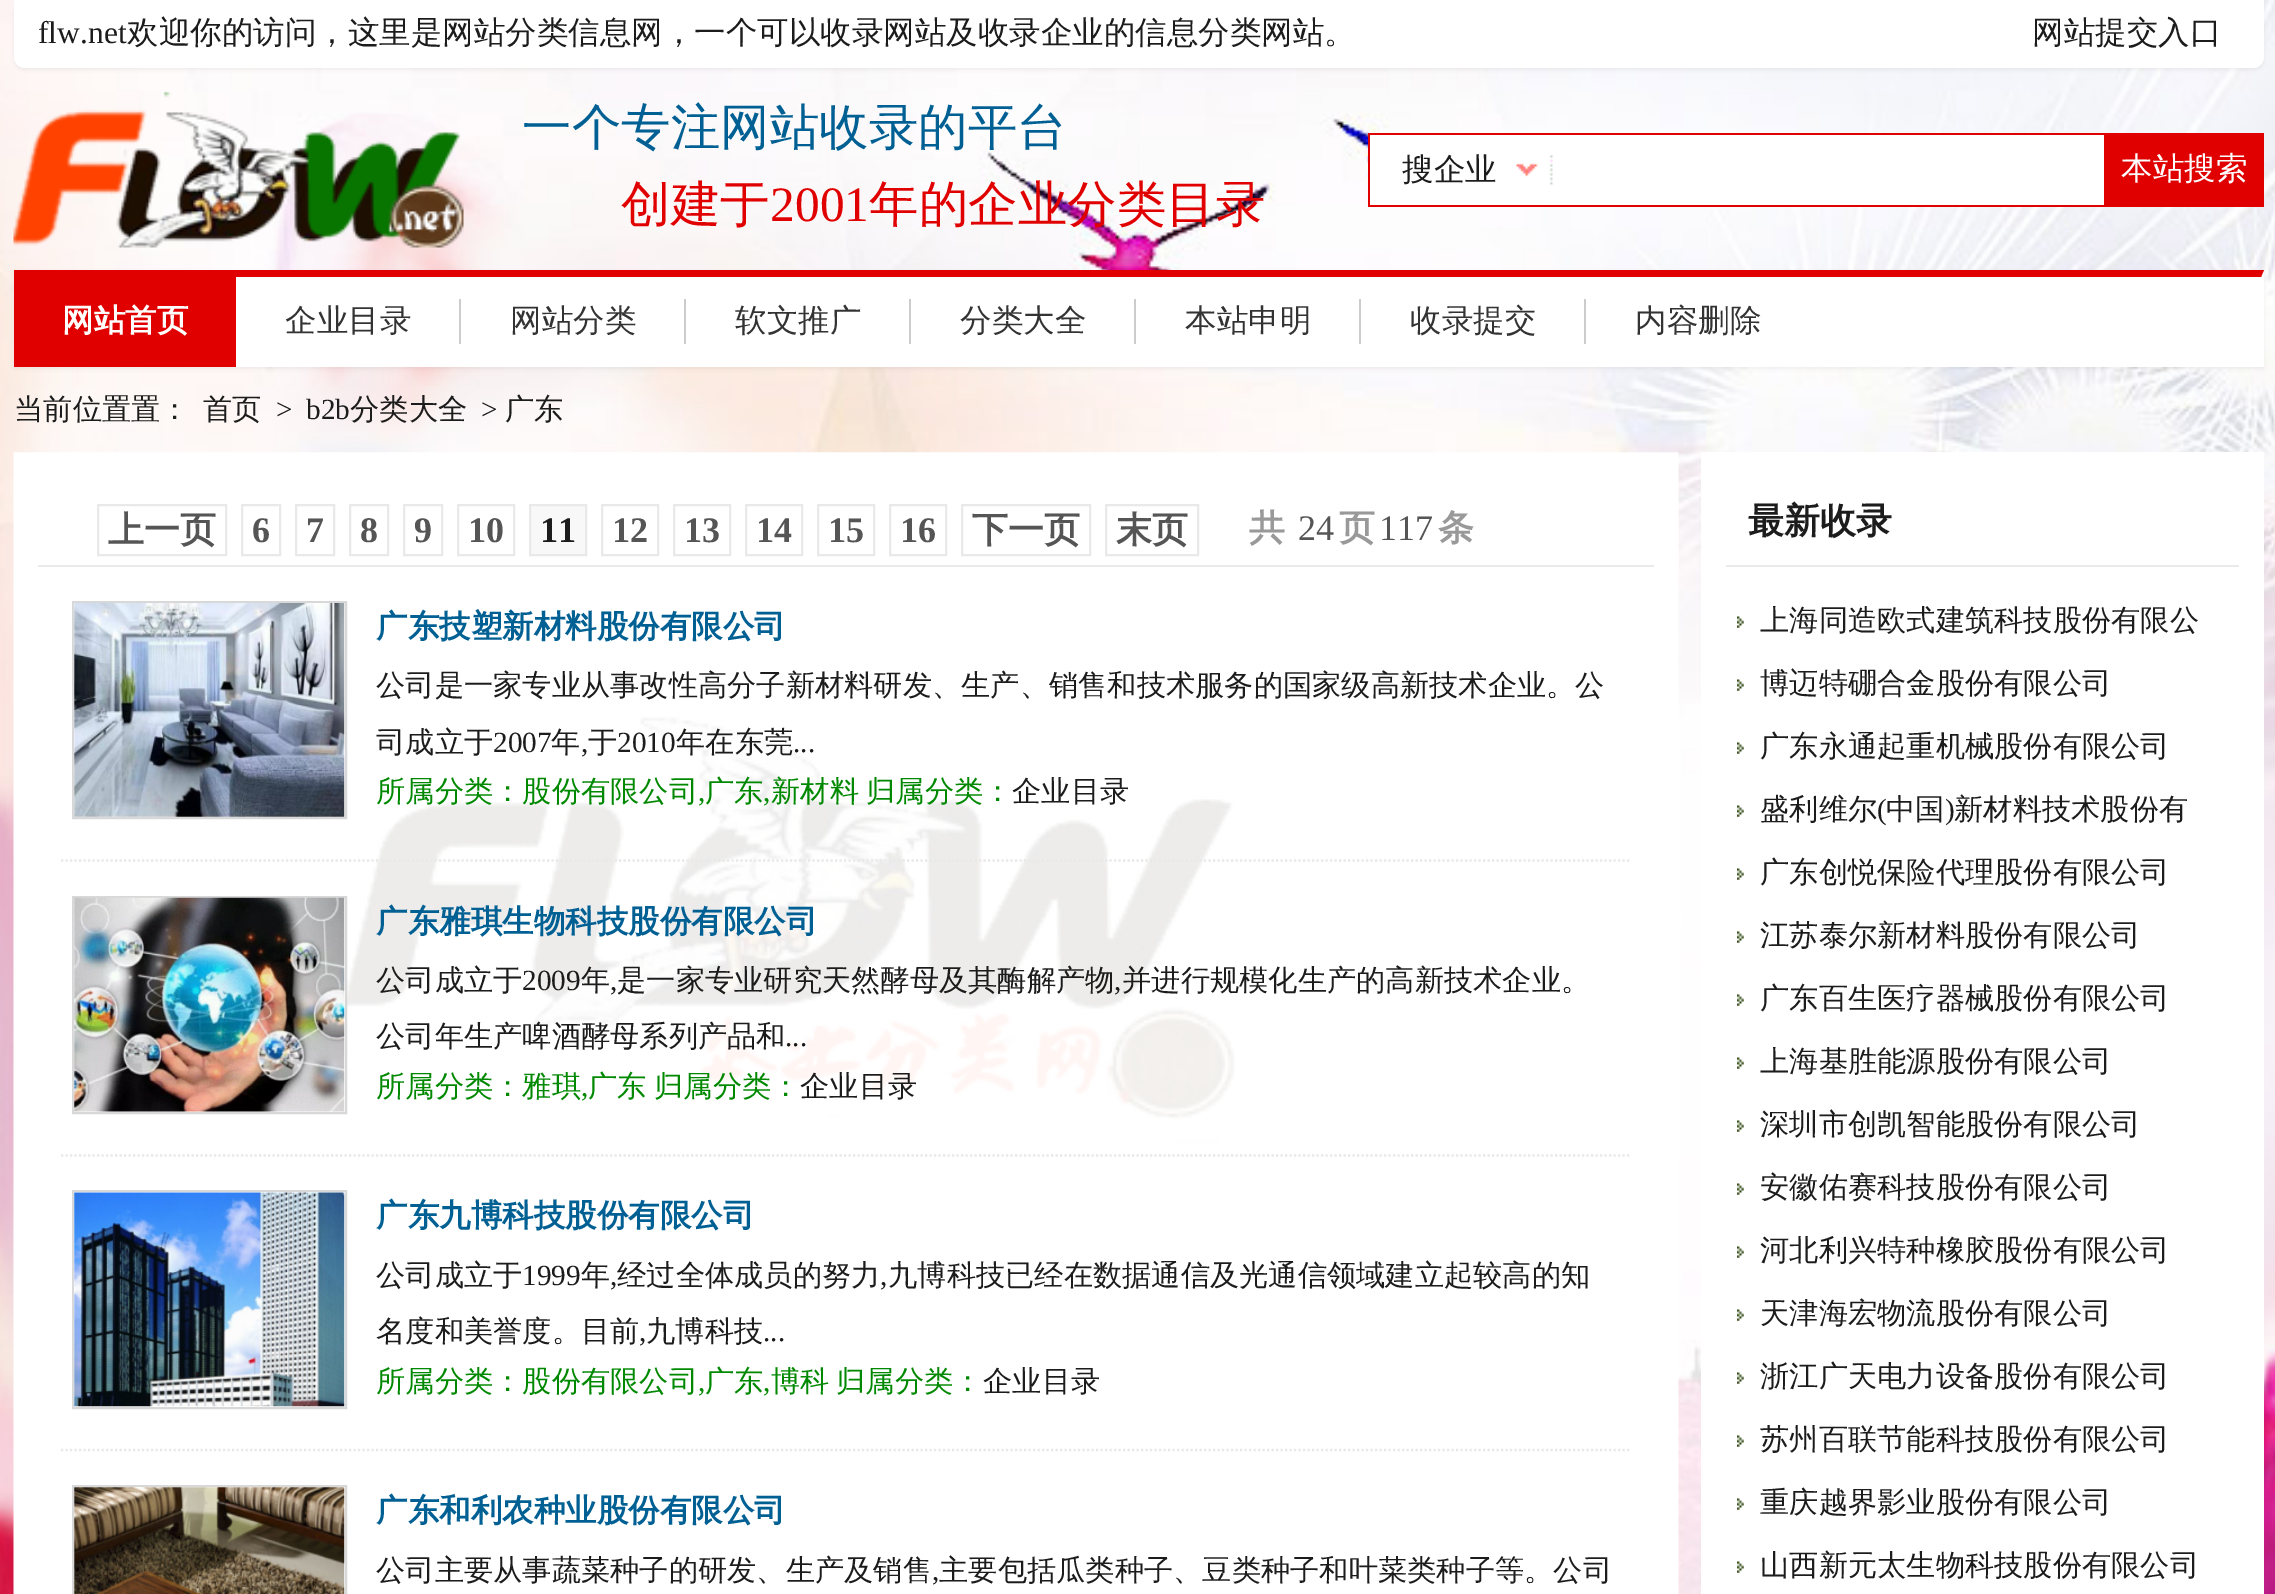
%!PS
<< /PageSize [2275 1594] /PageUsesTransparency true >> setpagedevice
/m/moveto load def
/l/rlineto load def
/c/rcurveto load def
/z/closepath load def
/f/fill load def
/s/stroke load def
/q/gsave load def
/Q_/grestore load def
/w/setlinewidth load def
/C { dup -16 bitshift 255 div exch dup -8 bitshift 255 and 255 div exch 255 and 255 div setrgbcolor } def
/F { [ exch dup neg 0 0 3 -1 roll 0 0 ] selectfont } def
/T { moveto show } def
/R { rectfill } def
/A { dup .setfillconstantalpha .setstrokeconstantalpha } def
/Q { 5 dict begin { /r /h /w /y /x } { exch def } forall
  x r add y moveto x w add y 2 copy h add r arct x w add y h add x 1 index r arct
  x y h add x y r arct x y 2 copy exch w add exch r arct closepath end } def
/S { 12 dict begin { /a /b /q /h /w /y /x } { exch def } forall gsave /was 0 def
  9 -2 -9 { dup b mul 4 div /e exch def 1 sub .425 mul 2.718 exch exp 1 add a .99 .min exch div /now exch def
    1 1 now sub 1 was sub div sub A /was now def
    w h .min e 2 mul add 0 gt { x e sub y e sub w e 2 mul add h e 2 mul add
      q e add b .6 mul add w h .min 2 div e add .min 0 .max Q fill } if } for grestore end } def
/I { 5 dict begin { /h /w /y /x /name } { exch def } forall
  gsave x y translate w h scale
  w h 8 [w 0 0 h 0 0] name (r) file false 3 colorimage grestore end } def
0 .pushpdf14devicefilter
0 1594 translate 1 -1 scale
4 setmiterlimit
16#FFFFFF C
0 0 2275 1594 R
(1.rgb) 0 0 2275 1594 I
16#000000 C
14 2 2250 68 11 2 .05 S
16#FFFFFF C
14 0 m 2250 0 l 0 57 l 0 6 -5 11 -11 11 c -2228 0 l -6 0 -11 -5 -11 -11 c z f
/LiberationSerif-Regular 31.5 F
16#1C1C1C C
(flw.net) 38 43 T
/WenQuanYiZenHei-Medium 31.5 F
(欢迎你的访问，这里是网站分类信息网，一个可以收录网站及收录企业的信息分类网站。) 127 43 T
(网站提交入口) 2032 43 T
(2.rgb) 13 91 451 157 I
/WenQuanYiZenHei-Medium 49.5 F
16#005F93 C
(一个专注网站收录的平台) 522 144 T
16#E00000 C
(创建于) 621 221 T
/LiberationSerif-Regular 49.5 F
(2001) 770 221 T
/WenQuanYiZenHei-Medium 49.5 F
(年的企业分类目录) 869 221 T
16#FFFFFF C
1370 135 734 70 R
16#E00000 C
1368 133 736 2 R
1368 205 736 2 R
1368 133 2 74 R
2104 133 160 74 R
/WenQuanYiZenHei-Medium 31.5 F
16#FFFFFF C
(本站搜索) 2121 179 T
(3.rgb) 1516 154 37 31 I
16#1C1C1C C
(搜企业) 1402 180 T
16#000000 C
14 272 2250 97 0 2 .05 S
16#FFFFFF C
236 270 2028 97 R
16#E00000 C
14 270 m 2250 0 l -3 7 l -2247 0 l z f
14 277 222 90 R
/WenQuanYiZenHei-Bold 31.5 F
16#FFFFFF C
(网站首页) 62 331 T
/WenQuanYiZenHei-Medium 31.5 F
16#333333 C
(企业目录) 285 331 T
16#CCCCCC C
459 299 2 45 R
16#333333 C
(网站分类) 510 331 T
16#CCCCCC C
684 299 2 45 R
16#333333 C
(软文推广) 735 331 T
16#CCCCCC C
909 299 2 45 R
16#333333 C
(分类大全) 960 331 T
16#CCCCCC C
1134 299 2 45 R
16#333333 C
(本站申明) 1185 331 T
16#CCCCCC C
1359 299 2 45 R
16#333333 C
(收录提交) 1410 331 T
16#CCCCCC C
1584 299 2 45 R
16#333333 C
(内容删除) 1635 331 T
/WenQuanYiZenHei-Medium 29.25 F
16#1C1C1C C
(当前位置置：) 14 419 T
(首页) 203 419 T
/LiberationSerif-Regular 29.25 F
(>) 276 419 T
(b2b) 306 419 T
/WenQuanYiZenHei-Medium 29.25 F
(分类大全) 350 419 T
/LiberationSerif-Regular 29.25 F
(>) 481 419 T
/WenQuanYiZenHei-Medium 29.25 F
(广东) 505 419 T
(4.rgb) 13 452 1666 1142 I
16#EAEAEA C
38 565 1616 2 R
16#E9E9E9 C
2 w
98 505 128 50 rectstroke
/WenQuanYiZenHei-Bold 36 F
16#555555 C
(上一页) 108 542 T
16#E9E9E9 C
242 505 38 50 rectstroke
/LiberationSerif-Bold 36 F
16#555555 C
(6) 252 542 T
16#E9E9E9 C
296 505 38 50 rectstroke
16#555555 C
(7) 306 542 T
16#E9E9E9 C
350 505 38 50 rectstroke
16#555555 C
(8) 360 542 T
16#E9E9E9 C
404 505 38 50 rectstroke
16#555555 C
(9) 414 542 T
16#E9E9E9 C
458 505 56 50 rectstroke
16#555555 C
(10) 468 542 T
16#F8F8F8 C
530 505 m 56 0 l 0 50 l -56 0 l z q f Q_
16#E9E9E9 C
s
16#1C1C1C C
(11) 540 542 T
16#E9E9E9 C
602 505 56 50 rectstroke
16#555555 C
(12) 612 542 T
16#E9E9E9 C
674 505 56 50 rectstroke
16#555555 C
(13) 684 542 T
16#E9E9E9 C
746 505 56 50 rectstroke
16#555555 C
(14) 756 542 T
16#E9E9E9 C
818 505 56 50 rectstroke
16#555555 C
(15) 828 542 T
16#E9E9E9 C
890 505 56 50 rectstroke
16#555555 C
(16) 900 542 T
16#E9E9E9 C
962 505 128 50 rectstroke
/WenQuanYiZenHei-Bold 36 F
16#555555 C
(下一页) 972 542 T
16#E9E9E9 C
1106 505 92 50 rectstroke
16#555555 C
(末页) 1116 542 T
16#999999 C
(共) 1249 540 T
/LiberationSerif-Regular 36 F
16#555555 C
(24) 1298 540 T
/WenQuanYiZenHei-Bold 36 F
16#999999 C
(页) 1339 540 T
/LiberationSerif-Regular 36 F
16#555555 C
(117) 1379 540 T
/WenQuanYiZenHei-Bold 36 F
16#999999 C
(条) 1438 540 T
16#E8E8E8 C
2.2 w
[2.25 2.25] 0 setdash
61 860.5 m 1570 0 l s
16#D8D8D8 C
2 w
[] 0 setdash
73 602 273 216 rectstroke
(5.rgb) 74 603 271 214 I
/WenQuanYiZenHei-Bold 31.5 F
16#005F93 C
(广东技塑新材料股份有限公司) 376 637 T
/WenQuanYiZenHei-Medium 29.25 F
16#1C1C1C C
(公司是一家专业从事改性高分子新材料研发、生产、销售和技术服务的国家级高新技术企业。公) 376 695 T
(司成立于) 376 752 T
/LiberationSerif-Regular 29.25 F
(2007) 493 752 T
/WenQuanYiZenHei-Medium 29.25 F
(年) 551 752 T
/LiberationSerif-Regular 29.25 F
(,) 581 752 T
/WenQuanYiZenHei-Medium 29.25 F
(于) 588 752 T
/LiberationSerif-Regular 29.25 F
(2010) 617 752 T
/WenQuanYiZenHei-Medium 29.25 F
(年在东莞) 676 752 T
/LiberationSerif-Regular 29.25 F
(...) 793 752 T
/WenQuanYiZenHei-Medium 29.25 F
16#008800 C
(所属分类：股份有限公司) 376 801 T
/LiberationSerif-Regular 29.25 F
(,) 698 801 T
/WenQuanYiZenHei-Medium 29.25 F
(广东) 705 801 T
/LiberationSerif-Regular 29.25 F
(,) 763 801 T
/WenQuanYiZenHei-Medium 29.25 F
(新材料) 771 801 T
(归属分类：) 866 801 T
16#1C1C1C C
(企业目录) 1012 801 T
16#E8E8E8 C
2.2 w
[2.25 2.25] 0 setdash
61 1155.5 m 1570 0 l s
16#D8D8D8 C
2 w
[] 0 setdash
73 897 273 216 rectstroke
(6.rgb) 74 897 271 215 I
/WenQuanYiZenHei-Bold 31.5 F
16#005F93 C
(广东雅琪生物科技股份有限公司) 376 932 T
/WenQuanYiZenHei-Medium 29.25 F
16#1C1C1C C
(公司成立于) 376 990 T
/LiberationSerif-Regular 29.25 F
(2009) 522 990 T
/WenQuanYiZenHei-Medium 29.25 F
(年) 581 990 T
/LiberationSerif-Regular 29.25 F
(,) 610 990 T
/WenQuanYiZenHei-Medium 29.25 F
(是一家专业研究天然酵母及其酶解产物) 617 990 T
/LiberationSerif-Regular 29.25 F
(,) 1114 990 T
/WenQuanYiZenHei-Medium 29.25 F
(并进行规模化生产的高新技术企业。) 1122 990 T
(公司年生产啤酒酵母系列产品和) 376 1046 T
/LiberationSerif-Regular 29.25 F
(...) 785 1046 T
/WenQuanYiZenHei-Medium 29.25 F
16#008800 C
(所属分类：雅琪) 376 1096 T
/LiberationSerif-Regular 29.25 F
(,) 581 1096 T
/WenQuanYiZenHei-Medium 29.25 F
(广东) 588 1096 T
(归属分类：) 654 1096 T
16#1C1C1C C
(企业目录) 800 1096 T
16#E8E8E8 C
2.2 w
[2.25 2.25] 0 setdash
61 1450 m 1570 0 l s
16#D8D8D8 C
2 w
[] 0 setdash
73 1191 273 217 rectstroke
(7.rgb) 74 1192 271 215 I
/WenQuanYiZenHei-Bold 31.5 F
16#005F93 C
(广东九博科技股份有限公司) 376 1226 T
/WenQuanYiZenHei-Medium 29.25 F
16#1C1C1C C
(公司成立于) 376 1285 T
/LiberationSerif-Regular 29.25 F
(1999) 522 1285 T
/WenQuanYiZenHei-Medium 29.25 F
(年) 581 1285 T
/LiberationSerif-Regular 29.25 F
(,) 610 1285 T
/WenQuanYiZenHei-Medium 29.25 F
(经过全体成员的努力) 617 1285 T
/LiberationSerif-Regular 29.25 F
(,) 880 1285 T
/WenQuanYiZenHei-Medium 29.25 F
(九博科技已经在数据通信及光通信领域建立起较高的知) 888 1285 T
(名度和美誉度。目前) 376 1341 T
/LiberationSerif-Regular 29.25 F
(,) 639 1341 T
/WenQuanYiZenHei-Medium 29.25 F
(九博科技) 646 1341 T
/LiberationSerif-Regular 29.25 F
(...) 763 1341 T
/WenQuanYiZenHei-Medium 29.25 F
16#008800 C
(所属分类：股份有限公司) 376 1391 T
/LiberationSerif-Regular 29.25 F
(,) 698 1391 T
/WenQuanYiZenHei-Medium 29.25 F
(广东) 705 1391 T
/LiberationSerif-Regular 29.25 F
(,) 763 1391 T
/WenQuanYiZenHei-Medium 29.25 F
(博科) 771 1391 T
(归属分类：) 836 1391 T
16#1C1C1C C
(企业目录) 983 1391 T
16#D8D8D8 C
73 1486 273 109 rectstroke
(8.rgb) 74 1487 271 107 I
/WenQuanYiZenHei-Bold 31.5 F
16#005F93 C
(广东和利农种业股份有限公司) 376 1521 T
/WenQuanYiZenHei-Medium 29.25 F
16#1C1C1C C
(公司主要从事蔬菜种子的研发、生产及销售) 376 1580 T
/LiberationSerif-Regular 29.25 F
(,) 932 1580 T
/WenQuanYiZenHei-Medium 29.25 F
(主要包括瓜类种子、豆类种子和叶菜类种子等。公司) 939 1580 T
16#FFFFFF C
1701 452 563 1142 R
16#EAEAEA C
1726 565 513 2 R
/WenQuanYiZenHei-Bold 36 F
16#1C1C1C C
(最新收录) 1748 533 T
(9.rgb) 1737 616 7 12 I
/WenQuanYiZenHei-Medium 29.25 F
(上海同造欧式建筑科技股份有限公) 1760 630 T
(9.rgb) 1737 679 7 12 I
(博迈特硼合金股份有限公司) 1760 693 T
(9.rgb) 1737 742 7 12 I
(广东永通起重机械股份有限公司) 1760 756 T
(9.rgb) 1737 805 7 12 I
(盛利维尔) 1760 819 T
/LiberationSerif-Regular 29.25 F
(\() 1877 819 T
/WenQuanYiZenHei-Medium 29.25 F
(中国) 1886 819 T
/LiberationSerif-Regular 29.25 F
(\)) 1945 819 T
/WenQuanYiZenHei-Medium 29.25 F
(新材料技术股份有) 1954 819 T
(9.rgb) 1737 868 7 12 I
(广东创悦保险代理股份有限公司) 1760 882 T
(9.rgb) 1737 931 7 12 I
(江苏泰尔新材料股份有限公司) 1760 945 T
(9.rgb) 1737 994 7 12 I
(广东百生医疗器械股份有限公司) 1760 1008 T
(9.rgb) 1737 1057 7 12 I
(上海基胜能源股份有限公司) 1760 1071 T
(9.rgb) 1737 1120 7 12 I
(深圳市创凯智能股份有限公司) 1760 1134 T
(9.rgb) 1737 1183 7 12 I
(安徽佑赛科技股份有限公司) 1760 1197 T
(9.rgb) 1737 1246 7 12 I
(河北利兴特种橡胶股份有限公司) 1760 1260 T
(9.rgb) 1737 1309 7 12 I
(天津海宏物流股份有限公司) 1760 1323 T
(9.rgb) 1737 1372 7 12 I
(浙江广天电力设备股份有限公司) 1760 1386 T
(9.rgb) 1737 1435 7 12 I
(苏州百联节能科技股份有限公司) 1760 1449 T
(9.rgb) 1737 1498 7 12 I
(重庆越界影业股份有限公司) 1760 1512 T
(9.rgb) 1737 1561 7 12 I
(山西新元太生物科技股份有限公司) 1760 1575 T
.poppdf14devicefilter showpage
